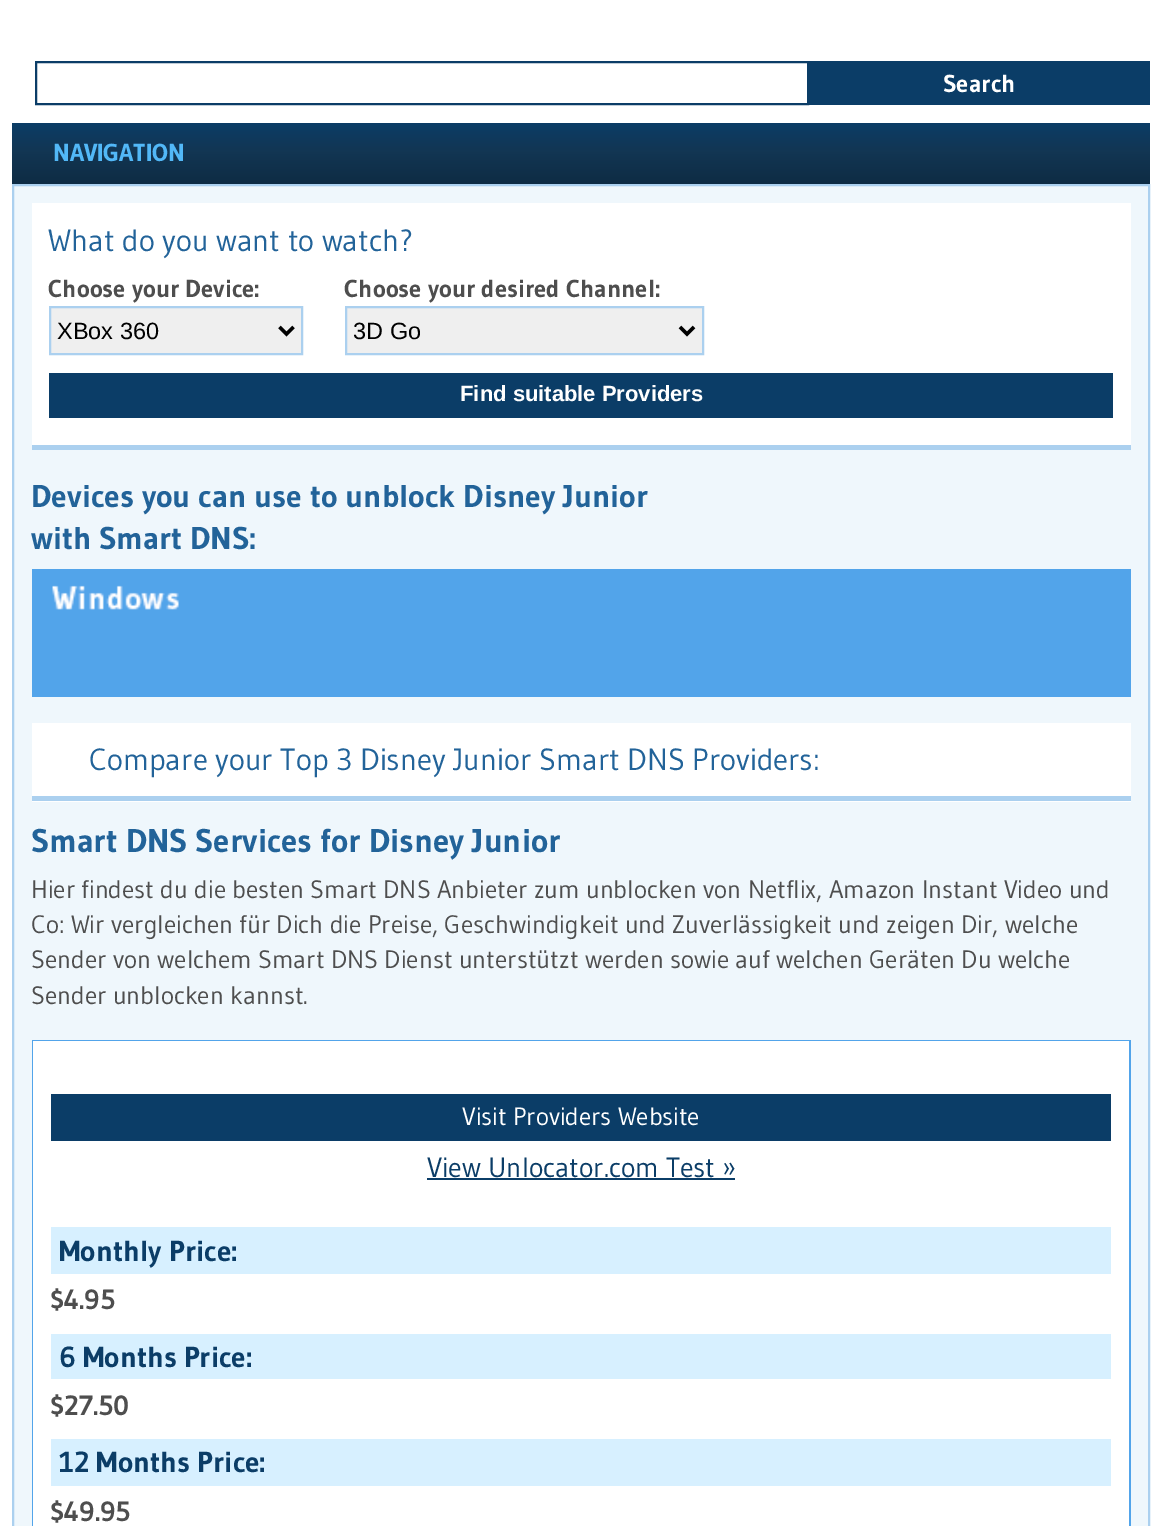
%!PS
<< /PageSize [1161 1526] >> setpagedevice
/m/moveto load def
/l/rlineto load def
/z/closepath load def
/f/fill load def
/s/stroke load def
/q/gsave load def
/Q_/grestore load def
/w/setlinewidth load def
/C { dup -16 bitshift 255 div exch dup -8 bitshift 255 and 255 div exch 255 and 255 div setrgbcolor } def
/F { [ exch dup neg 0 0 3 -1 roll 0 0 ] selectfont } def
/T { moveto show } def
/R { rectfill } def
/I { 5 dict begin { /h /w /y /x /name } { exch def } forall
  gsave x y translate w h scale
  w h 8 [w 0 0 h 0 0] name (r) file false 3 colorimage grestore end } def
0 1526 translate 1 -1 scale
4 setmiterlimit
16#FFFFFF C
0 0 1161 1526 R
16#0B3D67 C
2 w
36 62 772 42 rectstroke
809 61 341 44 R
/Gudea-Bold 24.5 F
16#FFFFFF C
(Search) 943 92 T
q 12 123 m 1138 0 l 0 61 l -1138 0 l z clip newpath
<< /ShadingType 2 /ColorSpace /DeviceRGB /Coords [581 122 581 184] /Extend [true true] /Function << /FunctionType 3 /Domain [0 1] /Functions [<< /FunctionType 2 /Domain [0 1] /C0 [.043 .239 .404] /C1 [.071 .212 .329] /N 1 >> << /FunctionType 2 /Domain [0 1] /C0 [.071 .212 .329] /C1 [.055 .173 .267] /N 1 >>] /Bounds [.45] /Encode [0 1 0 1] >> >> shfill Q_
16#52B8F7 C
(NAVIGATION) 53 161 T
16#EFF7FC C
13 185 m 1136 0 l 0 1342 l -1136 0 l z q f Q_
16#ABD0EF C
s
16#FFFFFF C
32 203 1099 242 R
16#ABD0EF C
32 445 1099 5 R
/Gudea-Regular 30.6 F
16#226399 C
(What do you want to watch?) 48 251 T
/Gudea-Bold 24.5 F
16#4E4E4E C
(Choose your Device:) 48 297 T
16#EFEFEF C
50 307 m 252 0 l 0 47 l -252 0 l z q f Q_
16#ABD0EF C
s
16#000000 C
3.5 w
279.5 327 m 7 7 l 7 -7 l s
/LiberationSans-Regular 23.5 F
(XBox 360) 57 339 T
/Gudea-Bold 24.5 F
16#4E4E4E C
(Choose your desired Channel:) 344 297 T
16#EFEFEF C
346 307 m 357 0 l 0 47 l -357 0 l z q f Q_
16#ABD0EF C
2 w
s
16#000000 C
3.5 w
680 327 m 7 7 l 7 -7 l s
/LiberationSans-Regular 23.5 F
(3D Go) 353 339 T
16#0B3D67 C
49 373 1064 45 R
/LiberationSans-Bold 22 F
16#FFFFFF C
(Find suitable Providers) 460 401 T
/Gudea-Bold 31.5 F
16#226399 C
(Devices you can use to unblock Disney Junior) 31 507 T
(with Smart DNS:) 31 549 T
16#52A4EA C
32 569 1099 128 R
(1.rgb) 52 585 127 25 I
16#FFFFFF C
32 723 1099 79 R
16#ABD0EF C
32 796 1099 5 R
/Gudea-Regular 30.6 F
16#226399 C
(Compare your Top 3 Disney Junior Smart DNS Providers:) 89 770 T
/Gudea-Bold 32.75 F
(Smart DNS Services for Disney Junior) 31 852 T
/Gudea-Regular 25.2 F
16#4E4E4E C
(Hier findest du die besten Smart DNS Anbieter zum unblocken von Netflix, Amazon Instant Video und) 31 898 T
(Co: Wir vergleichen für Dich die Preise, Geschwindigkeit und Zuverlässigkeit und zeigen Dir, welche) 31 933 T
(Sender von welchem Smart DNS Dienst unterstützt werden sowie auf welchen Geräten Du welche) 31 968 T
(Sender unblocken kannst.) 31 1004 T
16#52A4EA C
32 1040 1099 1 R
1129 1040 2 486 R
32 1040 2 486 R
16#FFFFFF C
33 1041 1096 485 R
16#0B3D67 C
51 1094 1060 47 R
/Gudea-Regular 25 F
16#FFFFFF C
(Visit Providers Website) 462 1125 T
/Gudea-Regular 27.75 F
16#0B3D67 C
(View Unlocator.com Test ») 427 1177 T
427 1178 308 2 R
16#D7F0FF C
51 1227 1060 47 R
/Gudea-Bold 29 F
16#0B3D67 C
(Monthly Price:) 59 1261 T
/Gudea-Bold 27.75 F
16#4E4E4E C
($4.95) 50 1309 T
16#D7F0FF C
51 1334 1060 45 R
/Gudea-Bold 29 F
16#0B3D67 C
(6 Months Price:) 59 1367 T
/Gudea-Bold 27.75 F
16#4E4E4E C
($27.50) 50 1415 T
16#D7F0FF C
51 1439 1060 47 R
/Gudea-Bold 29 F
16#0B3D67 C
(12 Months Price:) 59 1472 T
/Gudea-Bold 27.75 F
16#4E4E4E C
($49.95) 50 1521 T
showpage
